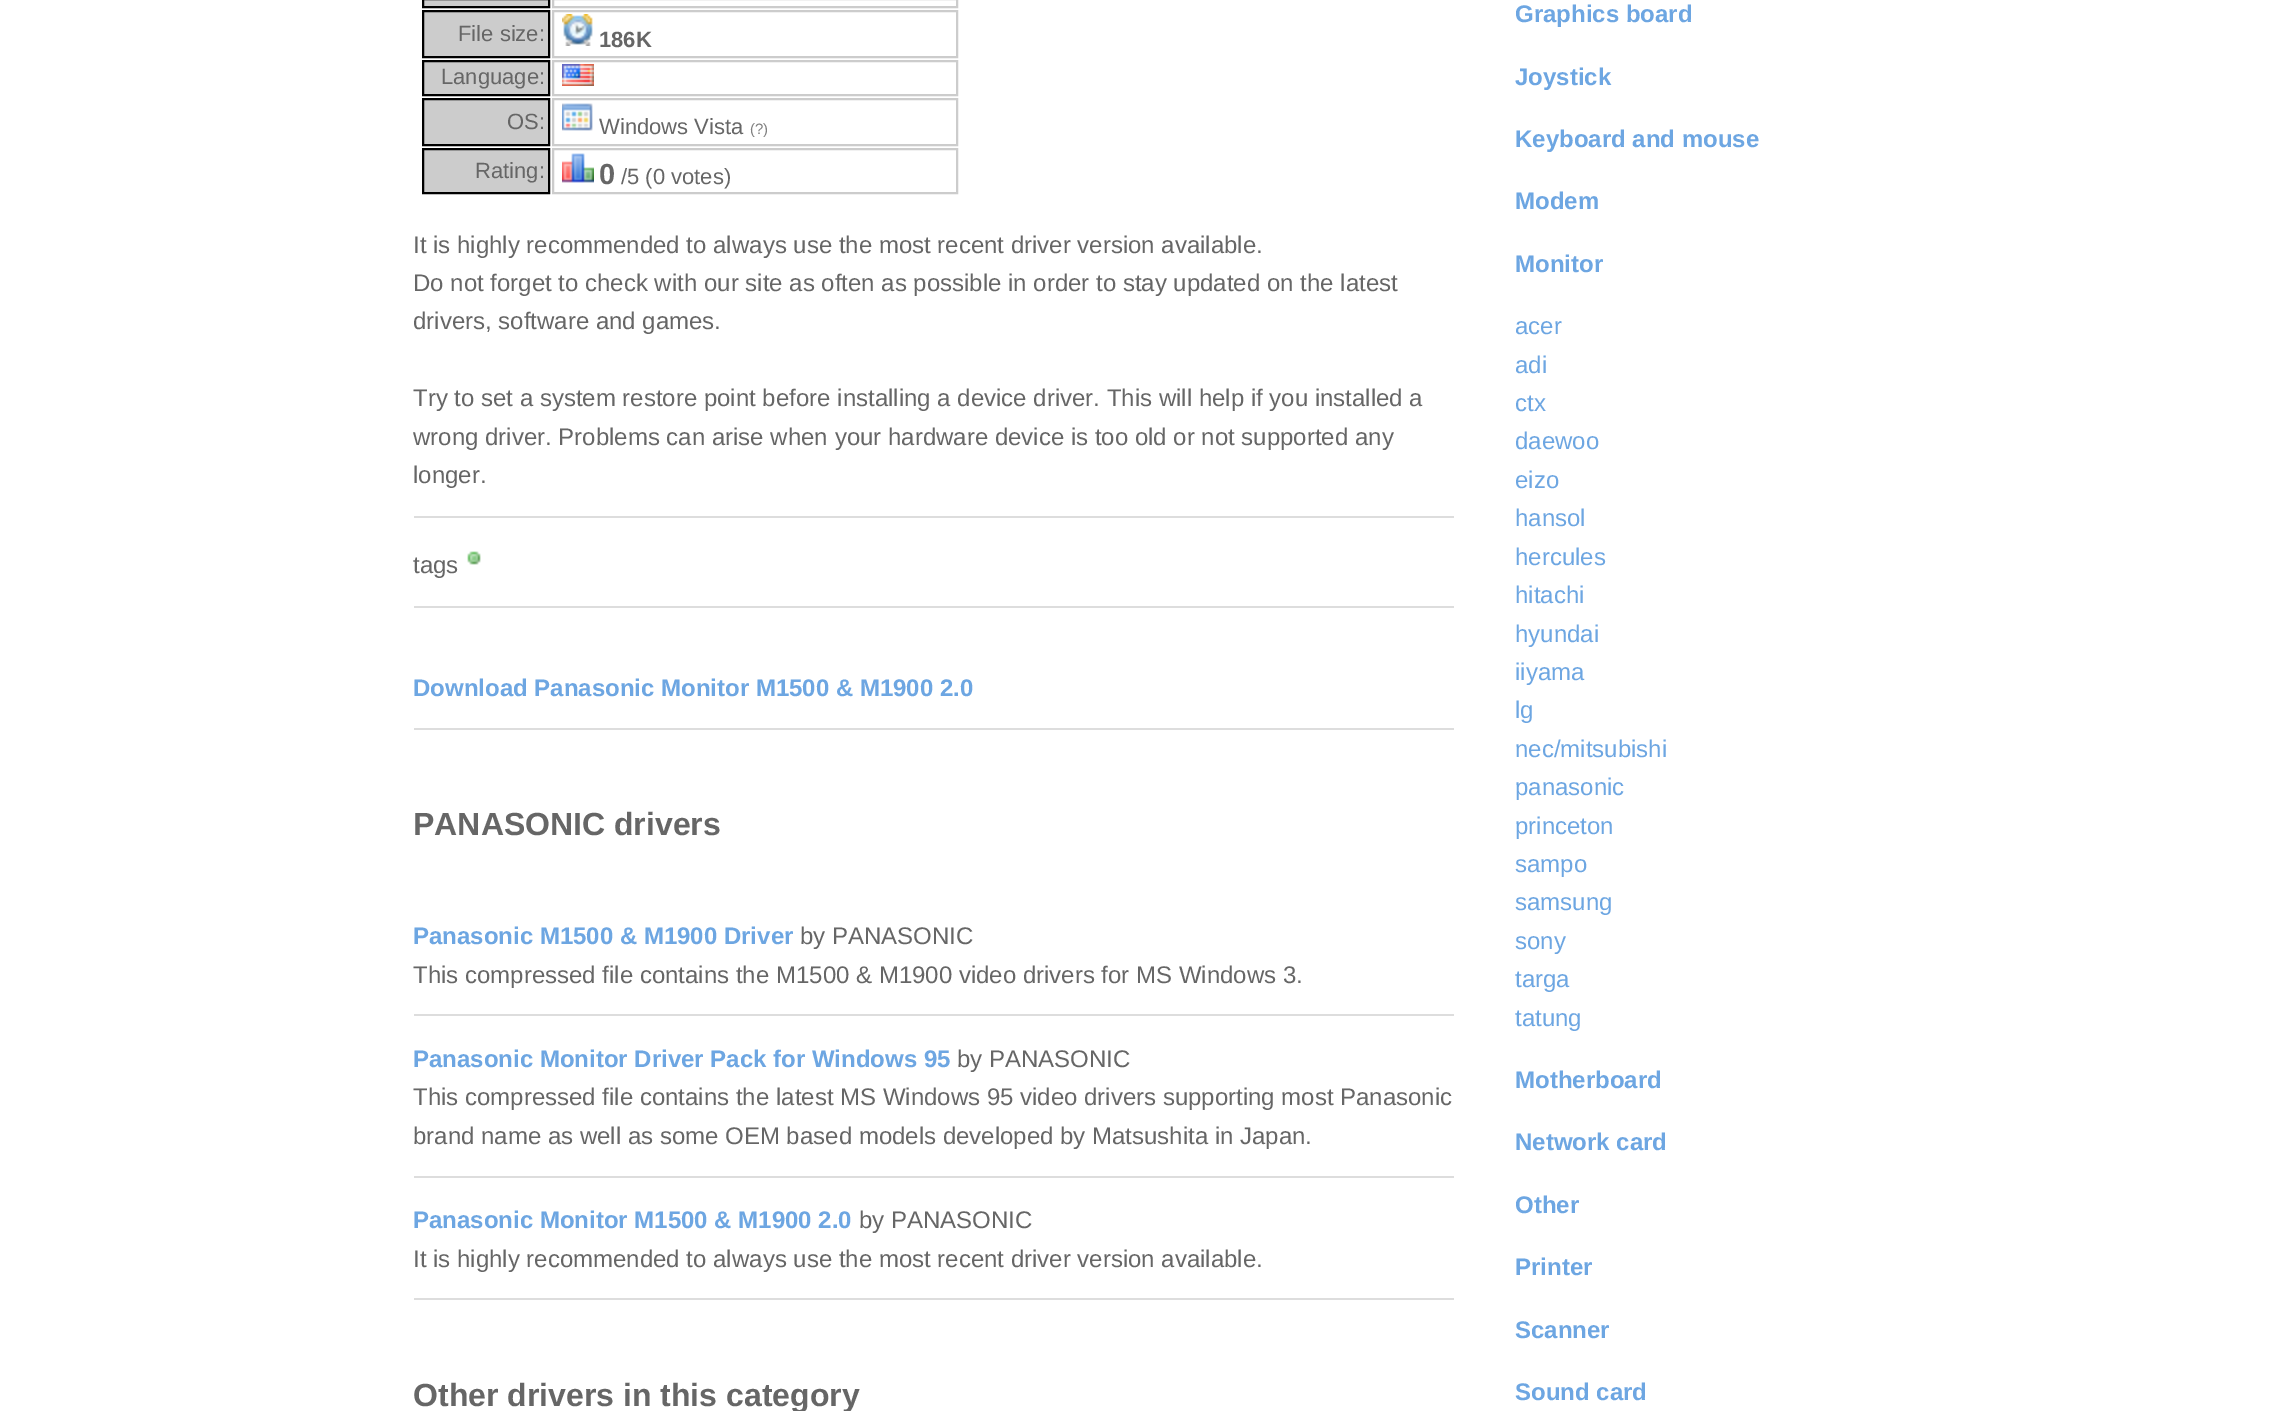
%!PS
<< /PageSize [2277 1411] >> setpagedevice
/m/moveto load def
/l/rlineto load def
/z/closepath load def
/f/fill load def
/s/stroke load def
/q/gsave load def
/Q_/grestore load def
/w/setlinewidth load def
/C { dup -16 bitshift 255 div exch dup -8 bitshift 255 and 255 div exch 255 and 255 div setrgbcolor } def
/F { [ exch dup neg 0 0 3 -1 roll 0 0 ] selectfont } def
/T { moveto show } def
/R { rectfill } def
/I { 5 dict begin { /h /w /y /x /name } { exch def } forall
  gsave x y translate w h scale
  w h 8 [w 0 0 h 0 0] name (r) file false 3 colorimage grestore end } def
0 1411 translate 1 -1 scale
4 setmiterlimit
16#FFFFFF C
0 0 2277 1411 R
16#CCCCCC C
423 -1 m 126 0 l 0 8 l -126 0 l z q f Q_
16#000000 C
2 w
s
16#CCCCCC C
553 -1 404 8 rectstroke
423 11 m 126 0 l 0 46 l -126 0 l z q f Q_
16#000000 C
s
/LiberationSans-Regular 22 F
16#666666 C
(File size:) 458 41 T
16#CCCCCC C
553 11 404 46 rectstroke
(1.rgb) 562 14 31 32 I
/LiberationSans-Bold 22 F
16#666666 C
(186K) 599 47 T
16#CCCCCC C
423 61 m 126 0 l 0 34 l -126 0 l z q f Q_
16#000000 C
s
/LiberationSans-Regular 22 F
16#666666 C
(Language:) 441 84 T
16#CCCCCC C
553 61 404 34 rectstroke
(2.rgb) 562 64 32 22 I
423 99 m 126 0 l 0 46 l -126 0 l z q f Q_
16#000000 C
s
16#666666 C
(OS:) 507 129 T
16#CCCCCC C
553 99 404 46 rectstroke
(3.rgb) 562 103 31 28 I
16#666666 C
(Windows Vista) 599 134 T
/LiberationSans-Regular 15 F
16#808080 C
(\(?\)) 750 134 T
16#CCCCCC C
423 149 m 126 0 l 0 44 l -126 0 l z q f Q_
16#000000 C
s
/LiberationSans-Regular 22 F
16#666666 C
(Rating:) 475 178 T
16#CCCCCC C
553 149 404 44 rectstroke
(4.rgb) 562 153 32 30 I
/LiberationSans-Bold 29 F
16#666666 C
(0) 599 184 T
/LiberationSans-Regular 22 F
(/5 \(0 votes\)) 621 184 T
16#DDDDDD C
414 516 1040 2 R
/LiberationSans-Regular 24 F
16#666666 C
(It is highly recommended to always use the most recent driver version available.) 413 253 T
(Do not forget to check with our site as often as possible in order to stay updated on the latest) 413 291 T
(drivers, software and games.) 413 329 T
(Try to set a system restore point before installing a device driver. This will help if you installed a) 413 406 T
(wrong driver. Problems can arise when your hardware device is too old or not supported any) 413 445 T
(longer.) 413 483 T
16#DDDDDD C
414 606 1040 2 R
16#666666 C
(tags) 413 573 T
(5.rgb) 467 551 14 14 I
16#DDDDDD C
414 728 1040 2 R
/LiberationSans-Bold 24 F
16#6DA6E2 C
(Download Panasonic Monitor M1500 & M1900 2.0) 413 696 T
/LiberationSans-Bold 32 F
16#666666 C
(PANASONIC drivers) 413 835 T
16#DDDDDD C
414 1014 1040 2 R
/LiberationSans-Bold 24 F
16#6DA6E2 C
(Panasonic M1500 & M1900 Driver) 413 944 T
/LiberationSans-Regular 24 F
16#666666 C
(by PANASONIC) 800 944 T
(This compressed file contains the M1500 & M1900 video drivers for MS Windows 3.) 413 983 T
16#DDDDDD C
414 1176 1040 2 R
/LiberationSans-Bold 24 F
16#6DA6E2 C
(Panasonic Monitor Driver Pack for Windows 95) 413 1067 T
/LiberationSans-Regular 24 F
16#666666 C
(by PANASONIC) 957 1067 T
(This compressed file contains the latest MS Windows 95 video drivers supporting most Panasonic) 413 1105 T
(brand name as well as some OEM based models developed by Matsushita in Japan.) 413 1144 T
16#DDDDDD C
414 1298 1040 2 R
/LiberationSans-Bold 24 F
16#6DA6E2 C
(Panasonic Monitor M1500 & M1900 2.0) 413 1228 T
/LiberationSans-Regular 24 F
16#666666 C
(by PANASONIC) 859 1228 T
(It is highly recommended to always use the most recent driver version available.) 413 1267 T
/LiberationSans-Bold 32 F
(Other drivers in this category) 413 1406 T
/LiberationSans-Bold 24 F
16#6DA6E2 C
(Graphics board) 1515 22 T
(Joystick) 1515 85 T
(Keyboard and mouse) 1515 147 T
(Modem) 1515 209 T
(Monitor) 1515 272 T
/LiberationSans-Regular 24 F
(acer) 1515 334 T
(adi) 1515 373 T
(ctx) 1515 411 T
(daewoo) 1515 449 T
(eizo) 1515 488 T
(hansol) 1515 526 T
(hercules) 1515 565 T
(hitachi) 1515 603 T
(hyundai) 1515 642 T
(iiyama) 1515 680 T
(lg) 1515 718 T
(nec/mitsubishi) 1515 757 T
(panasonic) 1515 795 T
(princeton) 1515 834 T
(sampo) 1515 872 T
(samsung) 1515 910 T
(sony) 1515 949 T
(targa) 1515 987 T
(tatung) 1515 1026 T
/LiberationSans-Bold 24 F
(Motherboard) 1515 1088 T
(Network card) 1515 1150 T
(Other) 1515 1213 T
(Printer) 1515 1275 T
(Scanner) 1515 1338 T
(Sound card) 1515 1400 T
showpage
